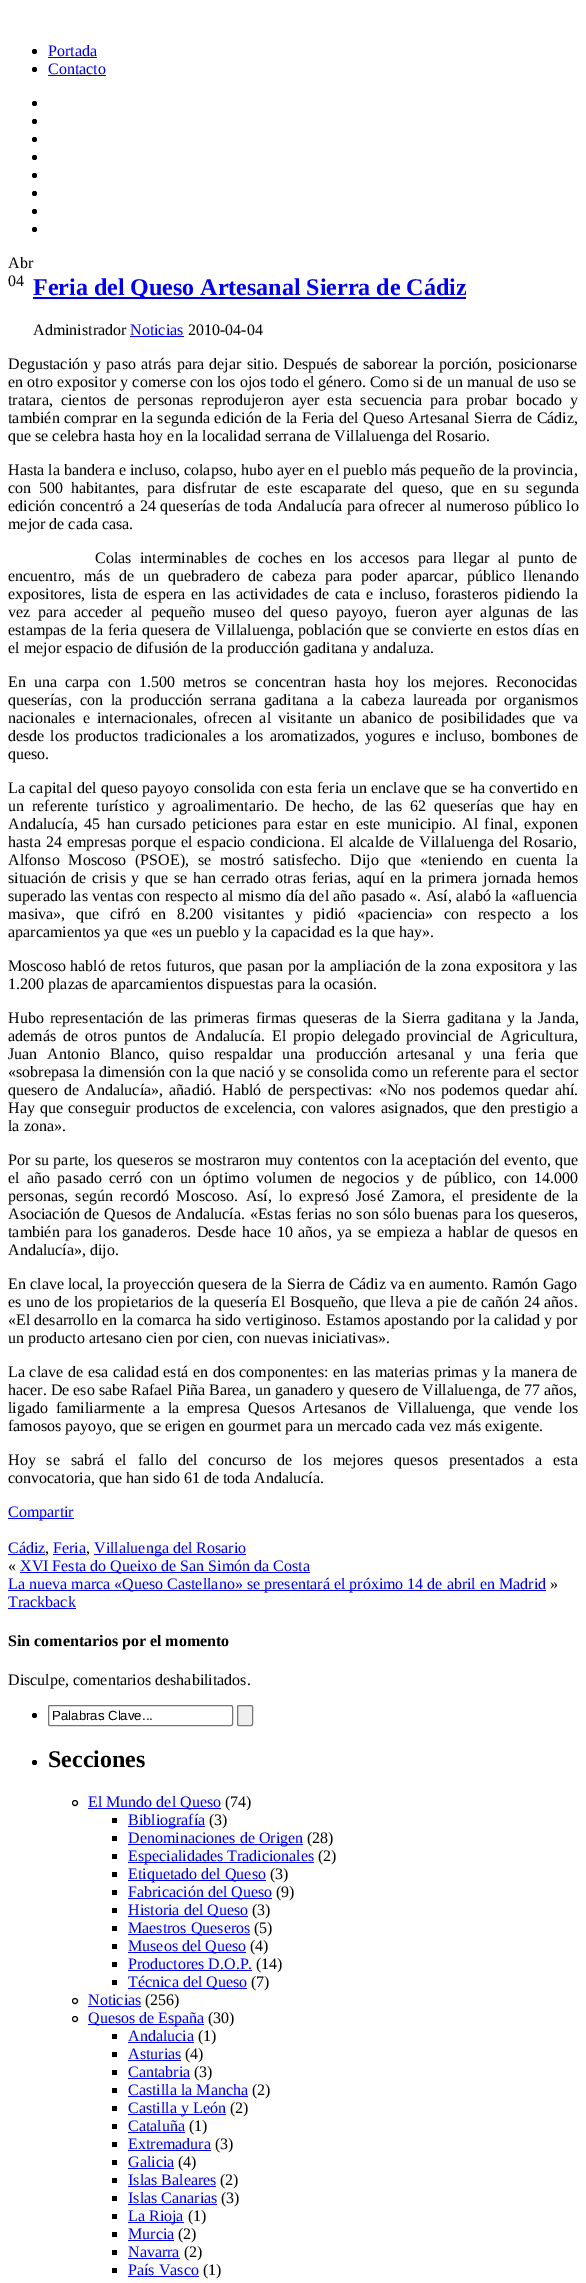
%!PS
<< /PageSize [586 2283] >> setpagedevice
/m/moveto load def
/f/fill load def
/s/stroke load def
/q/gsave load def
/Q_/grestore load def
/C { dup -16 bitshift 255 div exch dup -8 bitshift 255 and 255 div exch 255 and 255 div setrgbcolor } def
/F { [ exch dup neg 0 0 3 -1 roll 0 0 ] selectfont } def
/T { moveto show } def
/R { rectfill } def
/O { newpath 0 360 arc closepath } def
/Q { 5 dict begin { /r /h /w /y /x } { exch def } forall
  x r add y moveto x w add y 2 copy h add r arct x w add y h add x 1 index r arct
  x y h add x y r arct x y 2 copy exch w add exch r arct closepath end } def
0 2283 translate 1 -1 scale
4 setmiterlimit
16#FFFFFF C
0 0 586 2283 R
16#000000 C
34.5 51.5 2.5 O f
/LiberationSerif-Regular 16 F
16#0000EE C
(Portada) 48 56 T
48 57 49 1 R
16#000000 C
34.5 69.5 2.5 O f
16#0000EE C
(Contacto) 48 74 T
48 75 58 1 R
16#000000 C
34.5 103.5 2.5 O f
34.5 121.5 2.5 O f
34.5 139.5 2.5 O f
34.5 157.5 2.5 O f
34.5 175.5 2.5 O f
34.5 193.5 2.5 O f
34.5 211.5 2.5 O f
34.5 229.5 2.5 O f
(Abr) 8 268 T
(04) 8 286 T
16#0000EE C
33 297 433 2 R
/LiberationSerif-Bold 24 F
(Feria del Queso Artesanal Sierra de Cádiz) 33 295 T
/LiberationSerif-Regular 16 F
16#000000 C
(Administrador) 33 335 T
16#0000EE C
(Noticias) 130 335 T
130 336 54 1 R
16#000000 C
(2010-04-04) 188 335 T
8 369 m 1.25 0 32 (Degustación y paso atrás para dejar sitio. Después de saborear la porción, posicionarse) widthshow
(en otro expositor y comerse con los ojos todo el género. Como si de un manual de uso se) 8 387 T
8 405 m 4 0 32 (tratara, cientos de personas reprodujeron ayer esta secuencia para probar bocado y) widthshow
8 423 m .5 0 32 (también comprar en la segunda edición de la Feria del Queso Artesanal Sierra de Cádiz,) widthshow
(que se celebra hasta hoy en la localidad serrana de Villaluenga del Rosario.) 8 441 T
(Hasta la bandera e incluso, colapso, hubo ayer en el pueblo más pequeño de la provincia,) 8 475 T
8 493 m 3.75 0 32 (con 500 habitantes, para disfrutar de este escaparate del queso, que en su segunda) widthshow
8 511 m .75 0 32 (edición concentró a 24 queserías de toda Andalucía para ofrecer al numeroso público lo) widthshow
(mejor de cada casa.) 8 529 T
95 563 m 4.25 0 32 (Colas interminables de coches en los accesos para llegar al punto de) widthshow
8 581 m 4.9 0 32 (encuentro, más de un quebradero de cabeza para poder aparcar, público llenando) widthshow
8 599 m 1.9 0 32 (expositores, lista de espera en las actividades de cata e incluso, forasteros pidiendo la) widthshow
8 617 m 4.1 0 32 (vez para acceder al pequeño museo del queso payoyo, fueron ayer algunas de las) widthshow
8 635 m .75 0 32 (estampas de la feria quesera de Villaluenga, población que se convierte en estos días en) widthshow
(el mejor espacio de difusión de la producción gaditana y andaluza.) 8 653 T
8 687 m 4 0 32 (En una carpa con 1.500 metros se concentran hasta hoy los mejores. Reconocidas) widthshow
8 705 m 4 0 32 (queserías, con la producción serrana gaditana a la cabeza laureada por organismos) widthshow
8 723 m 3 0 32 (nacionales e internacionales, ofrecen al visitante un abanico de posibilidades que va) widthshow
8 741 m 2 0 32 (desde los productos tradicionales a los aromatizados, yogures e incluso, bombones de) widthshow
(queso.) 8 759 T
8 793 m .5 0 32 (La capital del queso payoyo consolida con esta feria un enclave que se ha convertido en) widthshow
8 811 m 3.75 0 32 (un referente turístico y agroalimentario. De hecho, de las 62 queserías que hay en) widthshow
8 829 m 2.4 0 32 (Andalucía, 45 han cursado peticiones para estar en este municipio. Al final, exponen) widthshow
8 847 m 1 0 32 (hasta 24 empresas porque el espacio condiciona. El alcalde de Villaluenga del Rosario,) widthshow
8 865 m 4.9 0 32 (Alfonso Moscoso \(PSOE\), se mostró satisfecho. Dijo que «teniendo en cuenta la) widthshow
8 883 m 1.6 0 32 (situación de crisis y que se han cerrado otras ferias, aquí en la primera jornada hemos) widthshow
8 901 m .25 0 32 (superado las ventas con respecto al mismo día del año pasado «. Así, alabó la «afluencia) widthshow
8 919 m 6.75 0 32 (masiva», que cifró en 8.200 visitantes y pidió «paciencia» con respecto a los) widthshow
(aparcamientos ya que «es un pueblo y la capacidad es la que hay».) 8 937 T
8 971 m .5 0 32 (Moscoso habló de retos futuros, que pasan por la ampliación de la zona expositora y las) widthshow
(1.200 plazas de aparcamientos dispuestas para la ocasión.) 8 989 T
8 1023 m 2 0 32 (Hubo representación de las primeras firmas queseras de la Sierra gaditana y la Janda,) widthshow
8 1041 m 2.9 0 32 (además de otros puntos de Andalucía. El propio delegado provincial de Agricultura,) widthshow
8 1059 m 6 0 32 (Juan Antonio Blanco, quiso respaldar una producción artesanal y una feria que) widthshow
(«sobrepasa la dimensión con la que nació y se consolida como un referente para el sector) 8 1077 T
8 1095 m 2.25 0 32 (quesero de Andalucía», añadió. Habló de perspectivas: «No nos podemos quedar ahí.) widthshow
8 1113 m 1.25 0 32 (Hay que conseguir productos de excelencia, con valores asignados, que den prestigio a) widthshow
(la zona».) 8 1131 T
8 1165 m .5 0 32 (Por su parte, los queseros se mostraron muy contentos con la aceptación del evento, que) widthshow
8 1183 m 3.4 0 32 (el año pasado cerró con un óptimo volumen de negocios y de público, con 14.000) widthshow
8 1201 m 3.4 0 32 (personas, según recordó Moscoso. Así, lo expresó José Zamora, el presidente de la) widthshow
8 1219 m .5 0 32 (Asociación de Quesos de Andalucía. «Estas ferias no son sólo buenas para los queseros,) widthshow
8 1237 m 1.5 0 32 (también para los ganaderos. Desde hace 10 años, ya se empieza a hablar de quesos en) widthshow
(Andalucía», dijo.) 8 1255 T
8 1289 m .25 0 32 (En clave local, la proyección quesera de la Sierra de Cádiz va en aumento. Ramón Gago) widthshow
8 1307 m .5 0 32 (es uno de los propietarios de la quesería El Bosqueño, que lleva a pie de cañón 24 años.) widthshow
8 1325 m .1 0 32 («El desarrollo en la comarca ha sido vertiginoso. Estamos apostando por la calidad y por) widthshow
(un producto artesano cien por cien, con nuevas iniciativas».) 8 1343 T
8 1377 m .6 0 32 (La clave de esa calidad está en dos componentes: en las materias primas y la manera de) widthshow
(hacer. De eso sabe Rafael Piña Barea, un ganadero y quesero de Villaluenga, de 77 años,) 8 1395 T
8 1413 m 3.6 0 32 (ligado familiarmente a la empresa Quesos Artesanos de Villaluenga, que vende los) widthshow
(famosos payoyo, que se erigen en gourmet para un mercado cada vez más exigente.) 8 1431 T
8 1465 m 6.9 0 32 (Hoy se sabrá el fallo del concurso de los mejores quesos presentados a esta) widthshow
(convocatoria, que han sido 61 de toda Andalucía.) 8 1483 T
16#0000EE C
8 1518 66 1 R
(Compartir) 8 1517 T
(Cádiz) 8 1553 T
16#000000 C
(,) 45 1553 T
16#0000EE C
8 1554 37 1 R
(Feria) 53 1553 T
16#000000 C
(,) 86 1553 T
16#0000EE C
53 1554 33 1 R
94 1554 152 1 R
(Villaluenga del Rosario) 94 1553 T
16#000000 C
(«) 8 1571 T
16#0000EE C
20 1572 290 1 R
(XVI Festa do Queixo de San Simón da Costa) 20 1571 T
8 1590 538 1 R
(La nueva marca «Queso Castellano» se presentará el próximo 14 de abril en Madrid) 8 1589 T
16#000000 C
(») 550 1589 T
16#0000EE C
(Trackback) 8 1607 T
8 1608 68 1 R
/LiberationSerif-Bold 16 F
16#000000 C
(Sin comentarios por el momento) 8 1646 T
/LiberationSerif-Regular 16 F
(Disculpe, comentarios deshabilitados.) 8 1685 T
34.5 1715.5 2.5 O f
16#767676 C
48.5 1705.5 184 20 1.5 Q s
/LiberationSans-Regular 13.25 F
16#000000 C
(Palabras Clave...) 52 1720 T
16#EFEFEF C
237.5 1705.5 15 20 1.5 Q q f Q_
16#767676 C
s
16#000000 C
34.5 1762.5 2.5 O f
/LiberationSerif-Bold 24 F
(Secciones) 48 1767 T
75 1803 2.5 O s
16#0000EE C
88 1808 133 1 R
/LiberationSerif-Regular 16 F
(El Mundo del Queso) 88 1807 T
16#000000 C
(\(74\)) 225 1807 T
112 1818 5 5 R
16#0000EE C
128 1826 77 1 R
(Bibliografía) 128 1825 T
16#000000 C
(\(3\)) 209 1825 T
112 1836 5 5 R
16#0000EE C
128 1844 175 1 R
(Denominaciones de Origen) 128 1843 T
16#000000 C
(\(28\)) 307 1843 T
112 1854 5 5 R
16#0000EE C
128 1862 186 1 R
(Especialidades Tradicionales) 128 1861 T
16#000000 C
(\(2\)) 318 1861 T
112 1872 5 5 R
16#0000EE C
128 1880 138 1 R
(Etiquetado del Queso) 128 1879 T
16#000000 C
(\(3\)) 270 1879 T
112 1890 5 5 R
16#0000EE C
128 1898 144 1 R
(Fabricación del Queso) 128 1897 T
16#000000 C
(\(9\)) 276 1897 T
112 1908 5 5 R
16#0000EE C
128 1916 120 1 R
(Historia del Queso) 128 1915 T
16#000000 C
(\(3\)) 252 1915 T
112 1926 5 5 R
16#0000EE C
128 1934 122 1 R
(Maestros Queseros) 128 1933 T
16#000000 C
(\(5\)) 254 1933 T
112 1944 5 5 R
16#0000EE C
128 1952 118 1 R
(Museos del Queso) 128 1951 T
16#000000 C
(\(4\)) 250 1951 T
112 1962 5 5 R
16#0000EE C
(Productores D.O.P.) 128 1969 T
128 1970 124 1 R
16#000000 C
(\(14\)) 256 1969 T
112 1980 5 5 R
16#0000EE C
128 1988 119 1 R
(Técnica del Queso) 128 1987 T
16#000000 C
(\(7\)) 251 1987 T
75 2001 2.5 O s
16#0000EE C
(Noticias) 88 2005 T
88 2006 53 1 R
16#000000 C
(\(256\)) 145 2005 T
75 2019 2.5 O s
16#0000EE C
88 2024 116 1 R
(Quesos de España) 88 2023 T
16#000000 C
(\(30\)) 208 2023 T
112 2034 5 5 R
16#0000EE C
(Andalucia) 128 2041 T
128 2042 66 1 R
16#000000 C
(\(1\)) 198 2041 T
112 2052 5 5 R
16#0000EE C
(Asturias) 128 2059 T
128 2060 53 1 R
16#000000 C
(\(4\)) 185 2059 T
112 2070 5 5 R
16#0000EE C
(Cantabria) 128 2077 T
128 2078 62 1 R
16#000000 C
(\(3\)) 194 2077 T
112 2088 5 5 R
16#0000EE C
(Castilla la Mancha) 128 2095 T
128 2096 120 1 R
16#000000 C
(\(2\)) 252 2095 T
112 2106 5 5 R
16#0000EE C
128 2114 98 1 R
(Castilla y León) 128 2113 T
16#000000 C
(\(2\)) 230 2113 T
112 2124 5 5 R
16#0000EE C
(Cataluña) 128 2131 T
128 2132 57 1 R
16#000000 C
(\(1\)) 189 2131 T
112 2142 5 5 R
16#0000EE C
(Extremadura) 128 2149 T
128 2150 83 1 R
16#000000 C
(\(3\)) 215 2149 T
112 2160 5 5 R
16#0000EE C
(Galicia) 128 2167 T
128 2168 46 1 R
16#000000 C
(\(4\)) 178 2167 T
112 2178 5 5 R
16#0000EE C
(Islas Baleares) 128 2185 T
128 2186 88 1 R
16#000000 C
(\(2\)) 220 2185 T
112 2196 5 5 R
16#0000EE C
(Islas Canarias) 128 2203 T
128 2204 89 1 R
16#000000 C
(\(3\)) 221 2203 T
112 2214 5 5 R
16#0000EE C
128 2222 56 1 R
(La Rioja) 128 2221 T
16#000000 C
(\(1\)) 188 2221 T
112 2232 5 5 R
16#0000EE C
(Murcia) 128 2239 T
128 2240 46 1 R
16#000000 C
(\(2\)) 178 2239 T
112 2250 5 5 R
16#0000EE C
(Navarra) 128 2257 T
128 2258 52 1 R
16#000000 C
(\(2\)) 184 2257 T
112 2268 5 5 R
16#0000EE C
(País Vasco) 128 2275 T
128 2276 71 1 R
16#000000 C
(\(1\)) 203 2275 T
showpage
